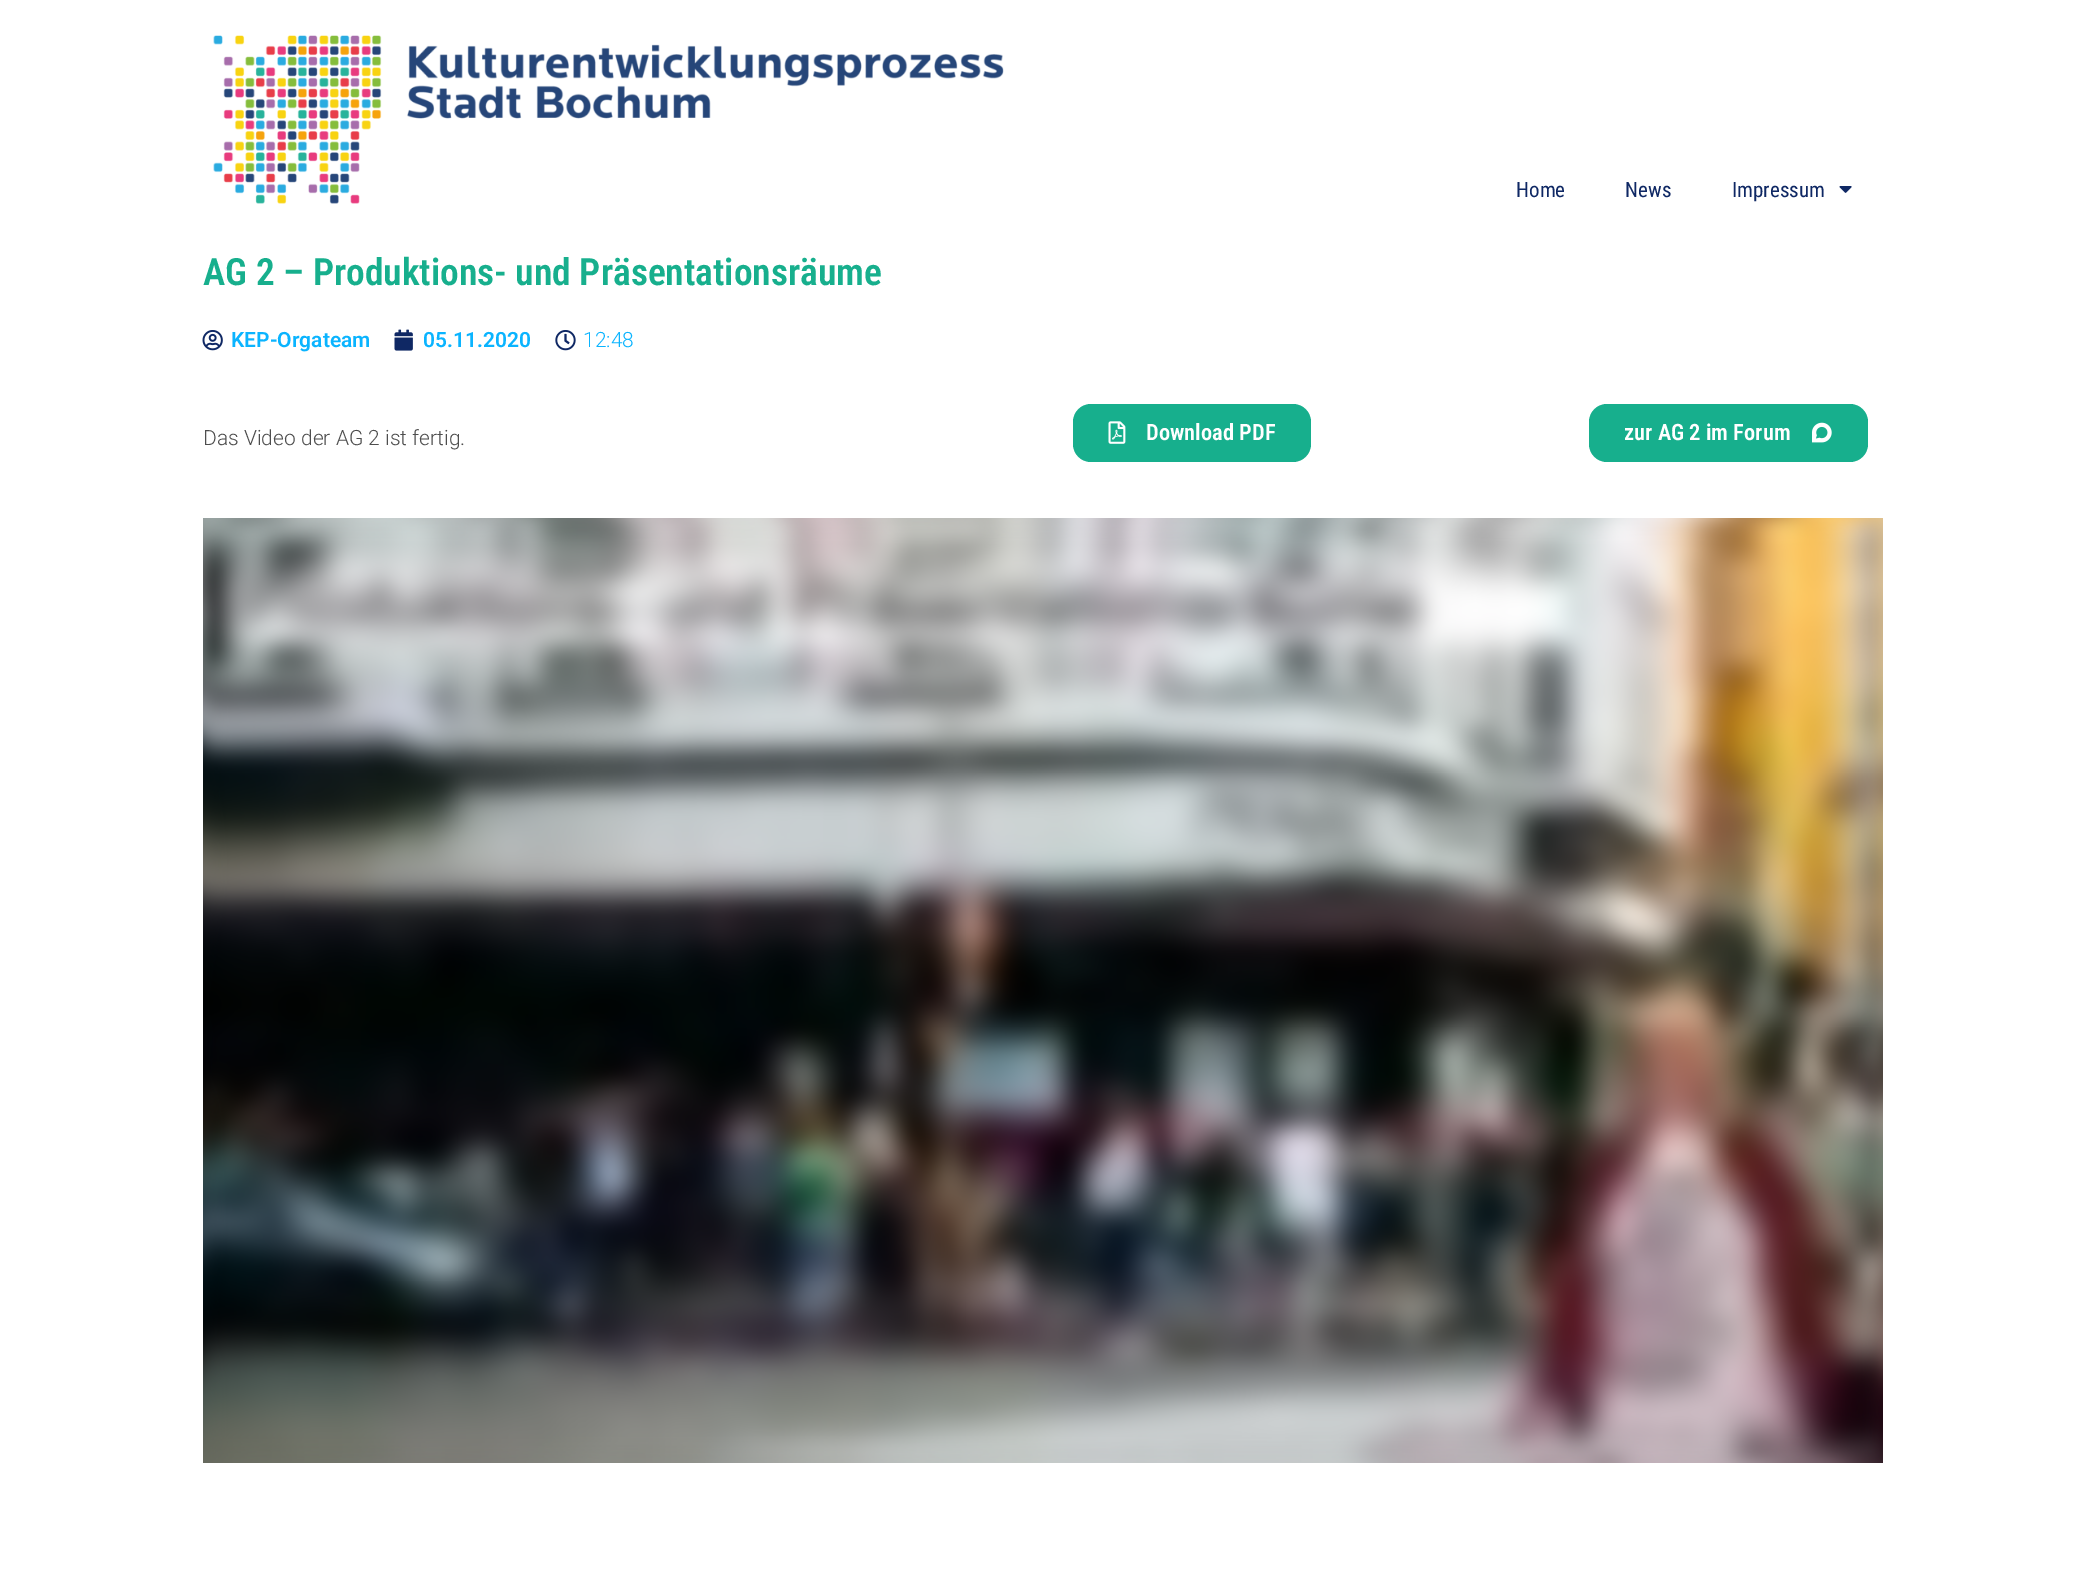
%!PS
<< /PageSize [2084 1588] >> setpagedevice
/f/fill load def
/C { dup -16 bitshift 255 div exch dup -8 bitshift 255 and 255 div exch 255 and 255 div setrgbcolor } def
/F { [ exch dup neg 0 0 3 -1 roll 0 0 ] selectfont } def
/T { moveto show } def
/R { rectfill } def
/Q { 5 dict begin { /r /h /w /y /x } { exch def } forall
  x r add y moveto x w add y 2 copy h add r arct x w add y h add x 1 index r arct
  x y h add x y r arct x y 2 copy exch w add exch r arct closepath end } def
/I { 5 dict begin { /h /w /y /x /name } { exch def } forall
  gsave x y translate w h scale
  w h 8 [w 0 0 h 0 0] name (r) file false 3 colorimage grestore end } def
0 1588 translate 1 -1 scale
4 setmiterlimit
16#FFFFFF C
0 0 2084 1588 R
(1.rgb) 213 35 791 169 I
/RobotoCondensed-Regular 21 F
16#0F2864 C
(Home) 1516 197 T
(News) 1625 197 T
(Impressum) 1732 197 T
(2.rgb) 1839 186 13 7 I
/RobotoCondensed-SemiBold 37.5 F
16#17AF8D C
(AG 2 – Produktions- und Präsentationsräume) 203 285 T
(3.rgb) 202 330 21 21 I
/Roboto-SemiBold 21 F
16#0AB4FF C
(KEP-Orgateam) 231 347 T
(4.rgb) 394 329 19 22 I
(05.11.2020) 423 347 T
(5.rgb) 555 330 21 21 I
/Roboto-Light 21 F
(12:48) 583 347 T
16#4E4E4E C
(Das Video der AG 2 ist fertig.) 203 445 T
16#17AF8D C
1073 404 238 58 18 Q f
(6.rgb) 1108 421 18 23 I
/RobotoCondensed-SemiBold 22.5 F
16#FFFFFF C
(Download PDF) 1146 440 T
16#17AF8D C
1589 404 279 58 18 Q f
16#FFFFFF C
(zur AG 2 im Forum) 1624 440 T
(7.rgb) 1812 422 20 21 I
(8.rgb) 203 518 1680 945 I
showpage
